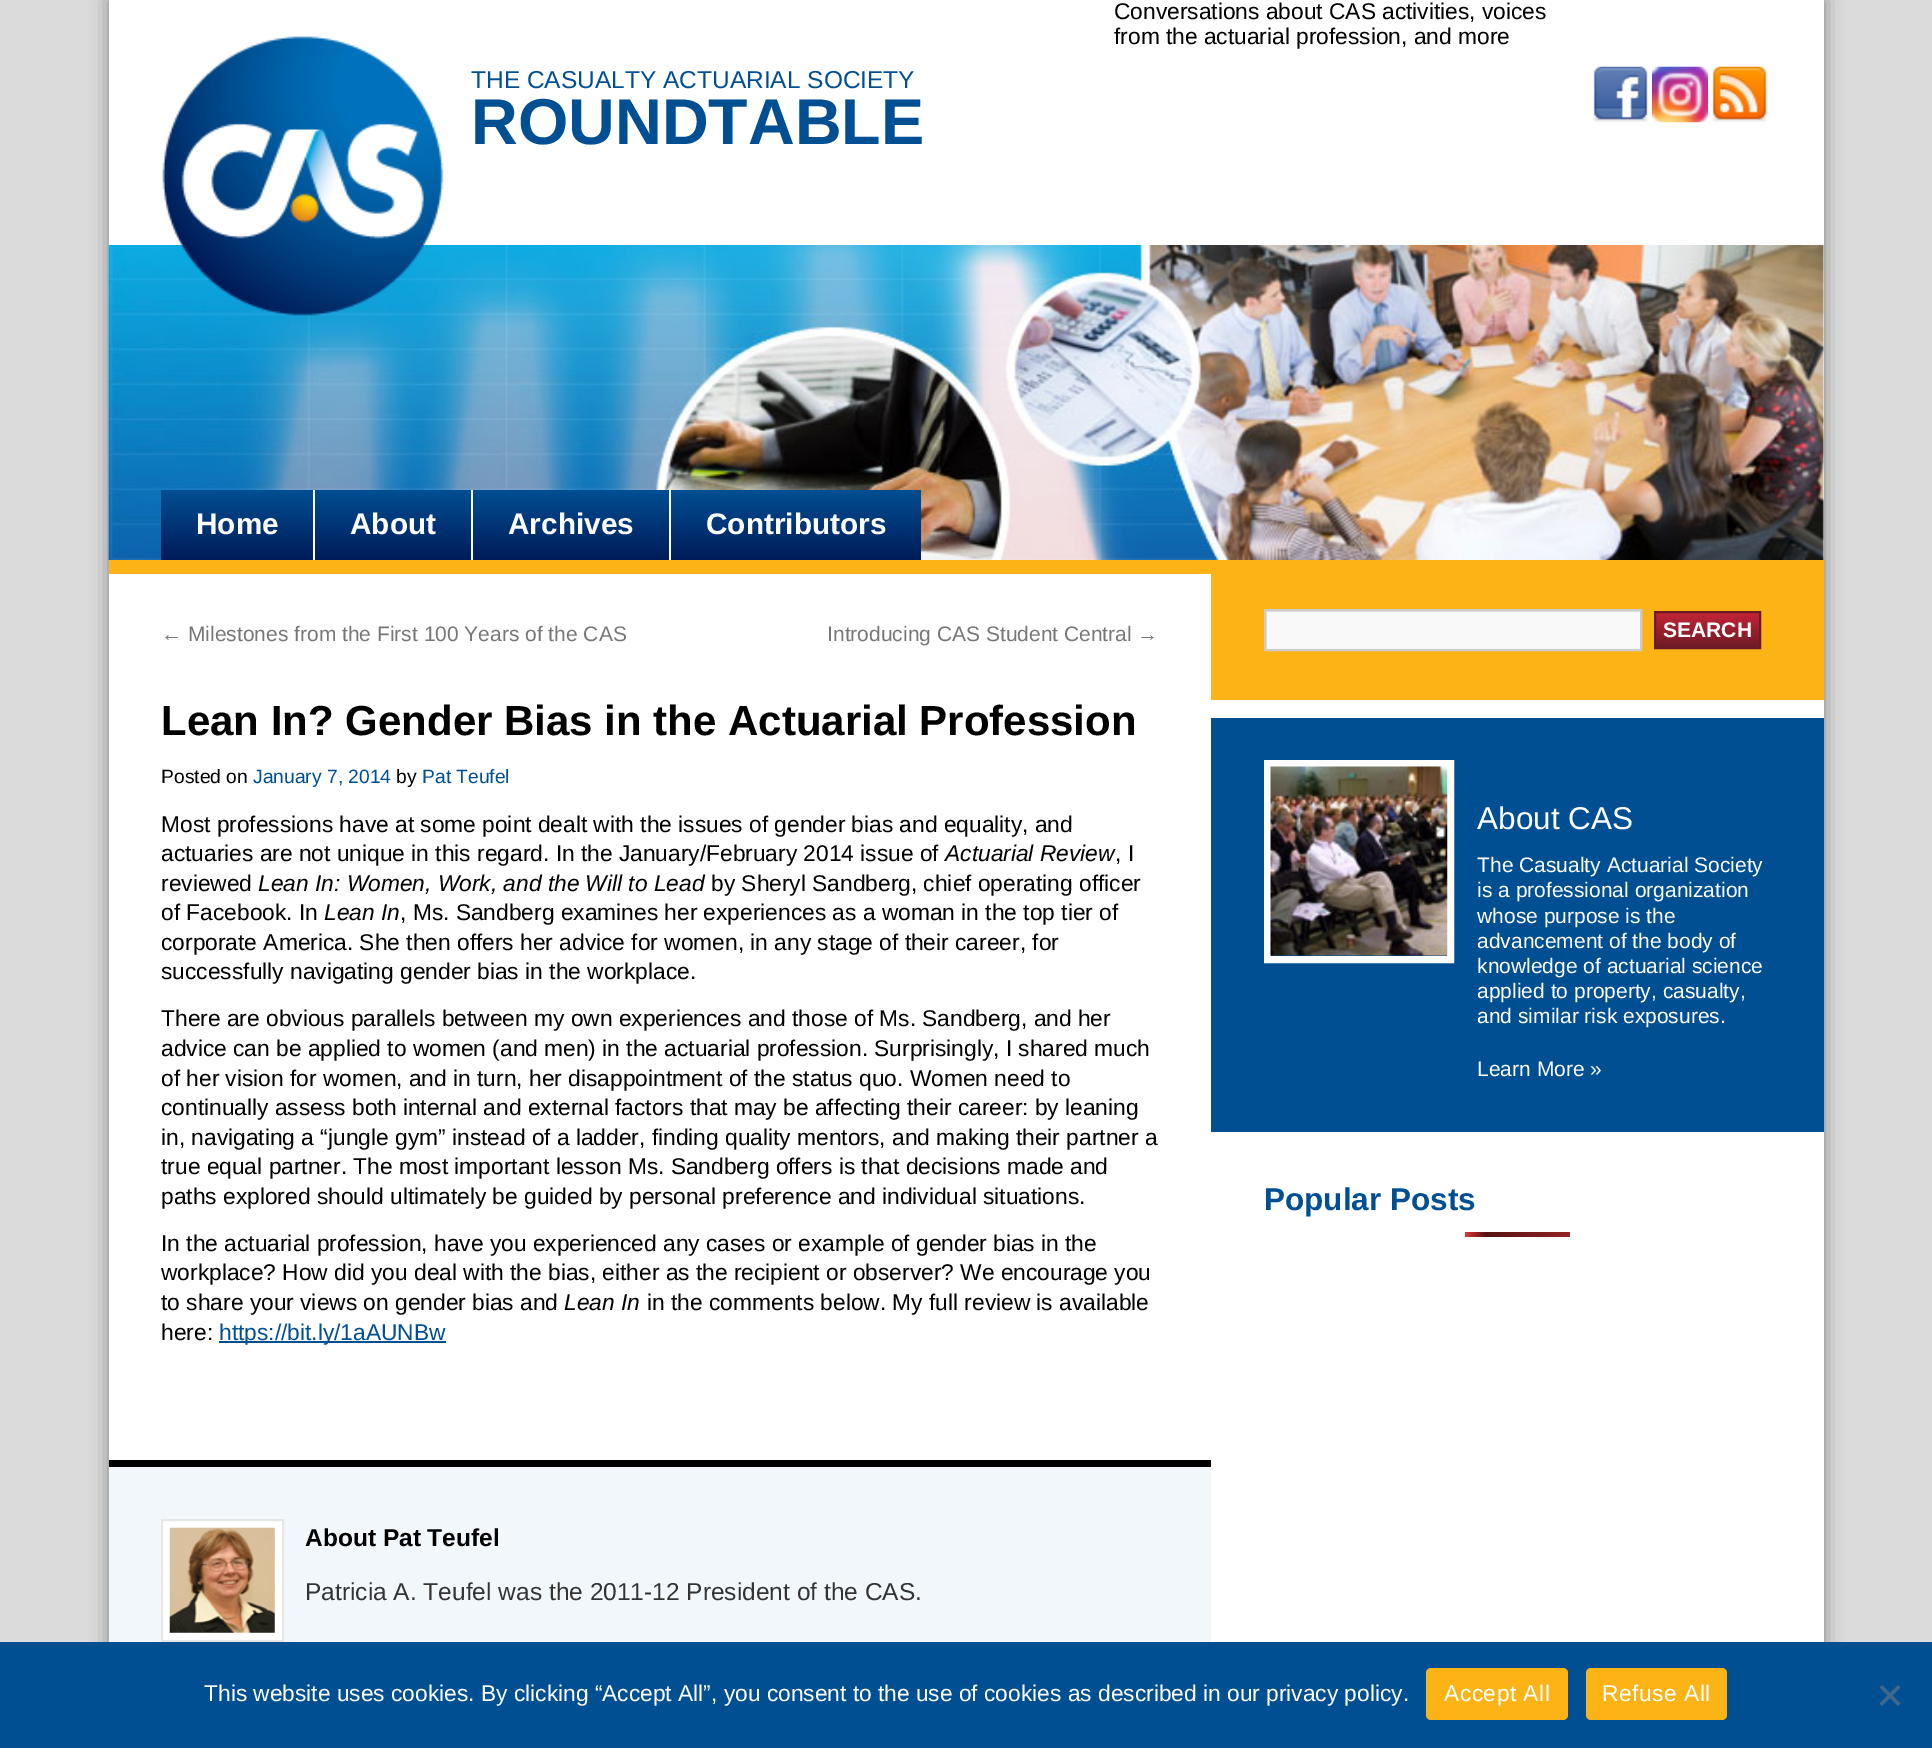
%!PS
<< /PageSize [1932 1748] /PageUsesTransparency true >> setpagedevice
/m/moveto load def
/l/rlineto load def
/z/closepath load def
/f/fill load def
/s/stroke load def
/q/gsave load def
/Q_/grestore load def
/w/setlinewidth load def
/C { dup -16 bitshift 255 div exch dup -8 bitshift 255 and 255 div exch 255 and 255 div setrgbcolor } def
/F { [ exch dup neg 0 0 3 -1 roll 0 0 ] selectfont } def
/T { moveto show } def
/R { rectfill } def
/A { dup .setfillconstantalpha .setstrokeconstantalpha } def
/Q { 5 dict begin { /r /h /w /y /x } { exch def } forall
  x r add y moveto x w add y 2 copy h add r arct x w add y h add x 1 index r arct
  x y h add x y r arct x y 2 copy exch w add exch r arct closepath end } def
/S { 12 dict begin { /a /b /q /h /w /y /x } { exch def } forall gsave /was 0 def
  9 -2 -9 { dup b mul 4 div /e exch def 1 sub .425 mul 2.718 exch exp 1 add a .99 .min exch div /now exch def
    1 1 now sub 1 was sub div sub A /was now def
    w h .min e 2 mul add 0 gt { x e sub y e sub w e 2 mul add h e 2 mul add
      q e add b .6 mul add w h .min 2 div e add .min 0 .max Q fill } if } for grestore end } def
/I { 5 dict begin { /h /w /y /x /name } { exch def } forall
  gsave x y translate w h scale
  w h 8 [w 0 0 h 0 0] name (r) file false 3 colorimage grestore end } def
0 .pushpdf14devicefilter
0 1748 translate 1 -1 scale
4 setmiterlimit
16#DBDBDB C
0 0 1932 1748 R
16#000000 C
109 0 1715 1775 0 9 .4 S
16#FFFFFF C
109 0 1715 1642 R
/LiberationSans-Regular 22.75 F
16#000000 C
(Conversations about CAS activities, voices) 1114 19 T
(from the actuarial profession, and more) 1114 44 T
(5.rgb) 108 245 1716 315 I
(1.rgb) 162 36 282 280 I
/LiberationSans-Regular 24.5 F
16#004F93 C
(THE CASUALTY ACTUARIAL SOCIETY) 471 88 T
/LiberationSans-Bold 64.75 F
(ROUNDTABLE) 471 144 T
(2.rgb) 1593 66 55 56 I
(3.rgb) 1652 66 56 57 I
(4.rgb) 1712 66 55 56 I
16#FCB315 C
109 560 1715 14 R
q 161 490 m 760 0 l 0 70 l -760 0 l z clip newpath
<< /ShadingType 2 /ColorSpace /DeviceRGB /Coords [541 490 541 560] /Extend [true true] /Function << /FunctionType 2 /Domain [0 1] /C0 [0 .31 .576] /C1 [0 .106 .349] /N 1 >> >> shfill Q_
/LiberationSans-Bold 29.75 F
16#FFFFFF C
(Home) 196 534 T
313 490 2 70 R
(About) 350 534 T
471 490 2 70 R
(Archives) 508 534 T
669 490 2 70 R
(Contributors) 706 534 T
/LiberationSans-Regular 21 F
16#777777 C
(← Milestones from the First 100 Years of the CAS) 161 641 T
(Introducing CAS Student Central →) 827 641 T
/LiberationSans-Bold 42 F
16#000000 C
(Lean In? Gender Bias in the Actuarial Profession) 161 735 T
/LiberationSans-Regular 19.25 F
(Posted on) 161 783 T
16#004F93 C
(January 7, 2014) 253 783 T
16#000000 C
(by) 396 783 T
16#004F93 C
(Pat Teufel) 422 783 T
/LiberationSans-Regular 22.75 F
16#000000 C
(Most professions have at some point dealt with the issues of gender bias and equality, and) 161 832 T
(actuaries are not unique in this regard. In the January/February 2014 issue of) 161 861 T
/LiberationSans-Italic 22.75 F
(Actuarial Review) 945 861 T
/LiberationSans-Regular 22.75 F
(, I) 1115 861 T
(reviewed) 161 891 T
/LiberationSans-Italic 22.75 F
(Lean In: Women, Work, and the Will to Lead) 258 891 T
/LiberationSans-Regular 22.75 F
(by Sheryl Sandberg, chief operating officer) 711 891 T
(of Facebook. In) 161 920 T
/LiberationSans-Italic 22.75 F
(Lean In) 324 920 T
/LiberationSans-Regular 22.75 F
(, Ms. Sandberg examines her experiences as a woman in the top tier of) 400 920 T
(corporate America. She then offers her advice for women, in any stage of their career, for) 161 950 T
(successfully navigating gender bias in the workplace.) 161 979 T
(There are obvious parallels between my own experiences and those of Ms. Sandberg, and her) 161 1026 T
(advice can be applied to women \(and men\) in the actuarial profession. Surprisingly, I shared much) 161 1056 T
(of her vision for women, and in turn, her disappointment of the status quo. Women need to) 161 1086 T
(continually assess both internal and external factors that may be affecting their career: by leaning) 161 1115 T
(in, navigating a “jungle gym” instead of a ladder, finding quality mentors, and making their partner a) 161 1145 T
(true equal partner. The most important lesson Ms. Sandberg offers is that decisions made and) 161 1174 T
(paths explored should ultimately be guided by personal preference and individual situations.) 161 1204 T
(In the actuarial profession, have you experienced any cases or example of gender bias in the) 161 1251 T
(workplace? How did you deal with the bias, either as the recipient or observer? We encourage you) 161 1280 T
(to share your views on gender bias and) 161 1310 T
/LiberationSans-Italic 22.75 F
(Lean In) 564 1310 T
/LiberationSans-Regular 22.75 F
(in the comments below. My full review is available) 647 1310 T
(here:) 161 1340 T
16#004F93 C
219 1341 227 2 R
(https://bit.ly/1aAUNBw) 219 1340 T
16#F2F7FC C
109 1467 1102 175 R
16#000000 C
109 1460 1102 7 R
16#FFFFFF C
162 1520 m 121 0 l 0 121 l -121 0 l z q f Q_
16#E7E7E7 C
2 w
s
(6.rgb) 169 1527 106 106 I
/LiberationSans-Bold 24.5 F
16#000000 C
(About Pat Teufel) 305 1546 T
/LiberationSans-Regular 24.5 F
16#333333 C
(Patricia A. Teufel was the 2011-12 President of the CAS.) 305 1600 T
16#FCB315 C
1211 574 613 126 R
16#F9F9F9 C
1267 612 373 37 R
q
1265 611 375 38 rectclip
16#E0E0E0 C
1092 438 m 721 0 l 0 384 l -721 0 l z 1267 612 m 375 0 l 0 39 l -375 0 l z eofill
Q_
16#CCCCCC C
1265 610 376 40 rectstroke
q 1656 613 m 103 0 l 0 34 l -103 0 l z clip newpath
<< /ShadingType 2 /ColorSpace /DeviceRGB /Coords [1656 648 1656 613] /Extend [true true] /Function << /FunctionType 2 /Domain [0 1] /C0 [.424 .106 .145] /C1 [.765 .141 .212] /N 1 >> >> shfill Q_
16#6B1B24 C
1655 612 105 36 rectstroke
/LiberationSans-Bold 21 F
16#FFFFFF C
(SEARCH) 1663 637 T
16#004F93 C
1211 718 613 414 R
16#FFFFFF C
7 w
1267.5 763.5 183 196 rectstroke
(7.rgb) 1270 766 178 190 I
/LiberationSans-Regular 31.5 F
(About CAS) 1477 829 T
/LiberationSans-Regular 21 F
(The Casualty Actuarial Society) 1477 872 T
(is a professional organization) 1477 897 T
(whose purpose is the) 1477 923 T
(advancement of the body of) 1477 948 T
(knowledge of actuarial science) 1477 973 T
(applied to property, casualty,) 1477 998 T
(and similar risk exposures.) 1477 1023 T
(Learn More ») 1477 1076 T
/LiberationSans-Bold 31.5 F
16#004F93 C
(Popular Posts) 1264 1210 T
q 1465 1232 105 5 2.5 Q clip newpath
<< /ShadingType 2 /ColorSpace /DeviceRGB /Coords [1465 1235 1675 1235] /Extend [true true] /Function << /FunctionType 3 /Domain [0 1] /Functions [<< /FunctionType 2 /Domain [0 1] /C0 [.867 .216 .216] /C1 [.341 .075 .075] /N 1 >> << /FunctionType 2 /Domain [0 1] /C0 [.341 .075 .075] /C1 [.867 .216 .216] /N 1 >>] /Bounds [.1] /Encode [0 1 0 1] >> >> shfill Q_
0 1642 1932 106 R
/LiberationSans-Regular 22.75 F
16#FFFFFF C
(This website uses cookies. By clicking “Accept All”, you consent to the use of cookies as described in our privacy policy.) 204 1701 T
16#FCB315 C
1426 1668 142 52 5 Q f
16#FFFFFF C
1444 1701 m .5 0 (Accept All) ashow
16#FCB315 C
1586 1668 141 52 5 Q f
16#FFFFFF C
1602 1701 m .5 0 (Refuse All) ashow
16#40688A C
1898 1685 m 2.5 2.5 l -18.5 18.5 l -2.5 -2.5 l z f
1879.5 1687.5 m 2.5 -2.5 l 18.5 18.5 l -2.5 2.5 l z f
.poppdf14devicefilter showpage
